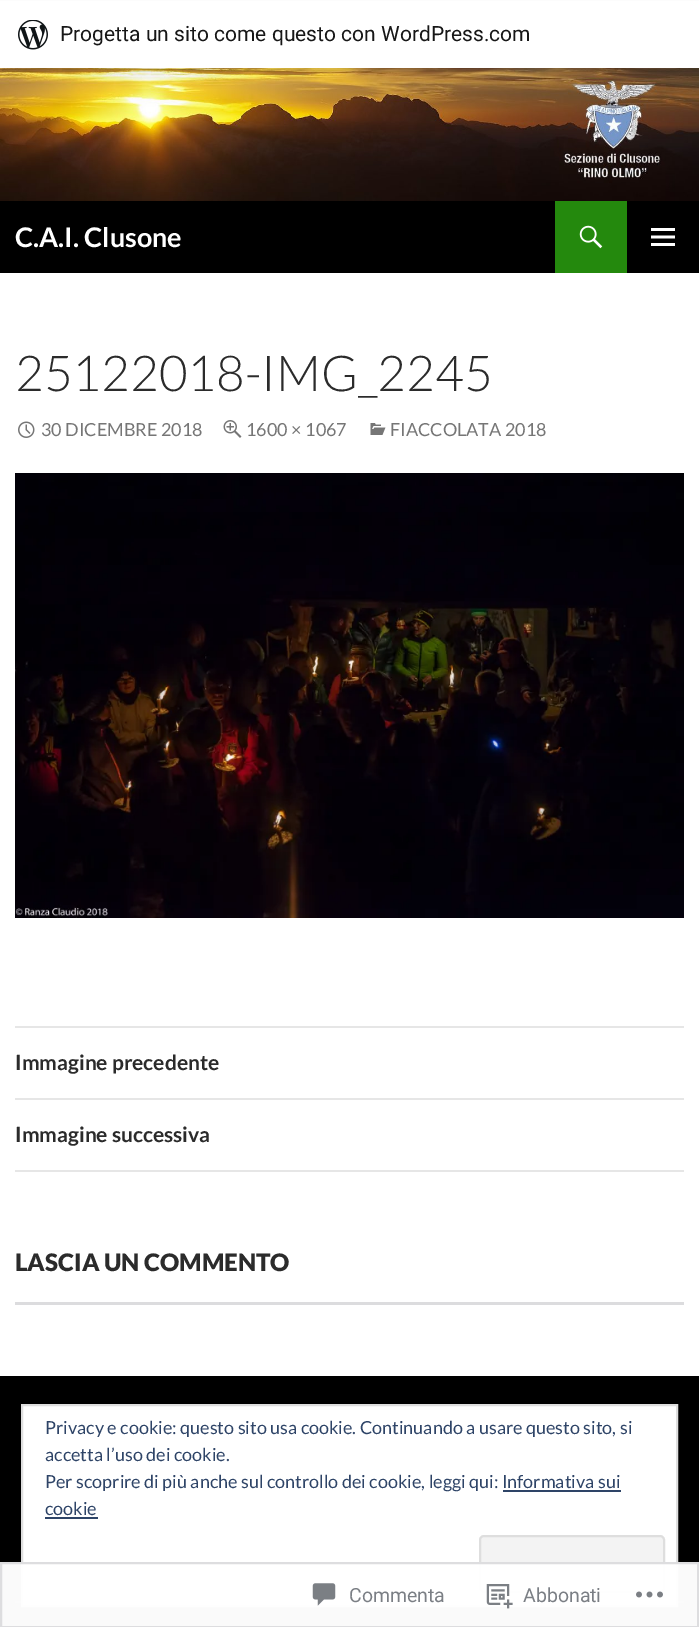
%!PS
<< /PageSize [699 1627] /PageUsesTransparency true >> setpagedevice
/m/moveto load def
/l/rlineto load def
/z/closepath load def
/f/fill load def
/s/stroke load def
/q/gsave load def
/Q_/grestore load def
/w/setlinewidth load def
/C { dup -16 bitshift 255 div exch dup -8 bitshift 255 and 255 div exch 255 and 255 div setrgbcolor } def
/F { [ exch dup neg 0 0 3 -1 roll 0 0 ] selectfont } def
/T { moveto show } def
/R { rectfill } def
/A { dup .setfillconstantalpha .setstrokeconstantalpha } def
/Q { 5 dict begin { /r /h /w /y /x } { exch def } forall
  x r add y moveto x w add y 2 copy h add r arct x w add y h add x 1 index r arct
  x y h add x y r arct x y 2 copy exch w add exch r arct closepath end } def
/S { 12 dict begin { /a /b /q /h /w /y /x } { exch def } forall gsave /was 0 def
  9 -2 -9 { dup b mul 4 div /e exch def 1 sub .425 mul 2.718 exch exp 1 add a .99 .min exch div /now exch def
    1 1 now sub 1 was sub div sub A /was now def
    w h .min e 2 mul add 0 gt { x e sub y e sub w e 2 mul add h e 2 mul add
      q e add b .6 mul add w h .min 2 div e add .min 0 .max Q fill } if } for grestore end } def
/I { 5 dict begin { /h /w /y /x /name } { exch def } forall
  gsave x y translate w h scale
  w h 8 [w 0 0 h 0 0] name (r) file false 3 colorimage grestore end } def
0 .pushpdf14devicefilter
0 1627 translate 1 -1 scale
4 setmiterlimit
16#FFFFFF C
0 0 699 1627 R
(2.rgb) 0 68 699 133 I
16#000000 C
0 2 699 67 0 1.5 .05 S
0.08 A
2 68 m 0 4 l 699 0 l 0 -67 l -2 0 l 0 63 l z f
1 A
16#FFFFFF C
0 1 699 67 R
(1.rgb) 18 20 30 30 I
/Roboto-Regular 21 F
16#171717 C
(Progetta un sito come questo con WordPress.com) 60 41 T
16#000000 C
0 201 699 72 R
/Lato-Bold 27 F
16#FFFFFF C
(C.A.I. Clusone) 15 247 T
16#24890D C
555 201 72 72 R
(3.rgb) 579 225 24 24 I
(4.rgb) 651 228 24 18 I
/Lato-Light 49.5 F
16#2B2B2B C
(25122018-IMG_2245) 15 391 T
(5.rgb) 18 421 17 17 I
/Lato-Regular 18 F
16#767676 C
(30 DICEMBRE 2018) 41 436 T
(6.rgb) 223 420 19 18 I
(1600 × 1067) 246 436 T
(7.rgb) 370 423 16 12 I
(FIACCOLATA 2018) 390 436 T
(8.rgb) 15 473 669 445 I
16#E6E6E6 C
15 1026 669 2 R
15 1098 669 2 R
/Lato-Bold 21 F
16#2B2B2B C
(Immagine precedente) 15 1070 T
16#E6E6E6 C
15 1170 669 2 R
16#2B2B2B C
(Immagine successiva) 15 1142 T
/Lato-Black 24 F
(LASCIA UN COMMENTO) 15 1271 T
16#DCDCDE C
15 1302 669 3 R
16#000000 C
0 1376 699 251 R
16#333333 C
15 1601 669 2 R
16#FFFFFF C
22 1405 m 655 0 l 0 201 l -655 0 l z q f Q_
16#DEDEDE C
2 w
s
/Lato-Regular 18 F
16#2E4467 C
(Privacy e cookie: questo sito usa cookie. Continuando a usare questo sito, si) 45 1434 T
(accetta l’uso dei cookie.) 45 1461 T
(Per scoprire di più anche sul controllo dei cookie, leggi qui: Informativa sui) 45 1488 T
(cookie) 45 1515 T
503 1490 118 2 R
45 1517 53 2 R
16#F3F3F3 C
480 1536 184 56 4 Q q f Q_
16#DEDEDE C
s
0.98 A
16#FFFFFF C
0 1562 699 65 R
16#DCDCDE C
1 1563 697 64 rectstroke
1 A
(9.rgb) 312 1583 24 23 I
/Roboto-Regular 19.5 F
16#7B7F85 C
(Commenta) 349 1602 T
(10.rgb) 486 1584 27 25 I
(Abbonati) 523 1602 T
(11.rgb) 636 1591 27 7 I
.poppdf14devicefilter showpage
